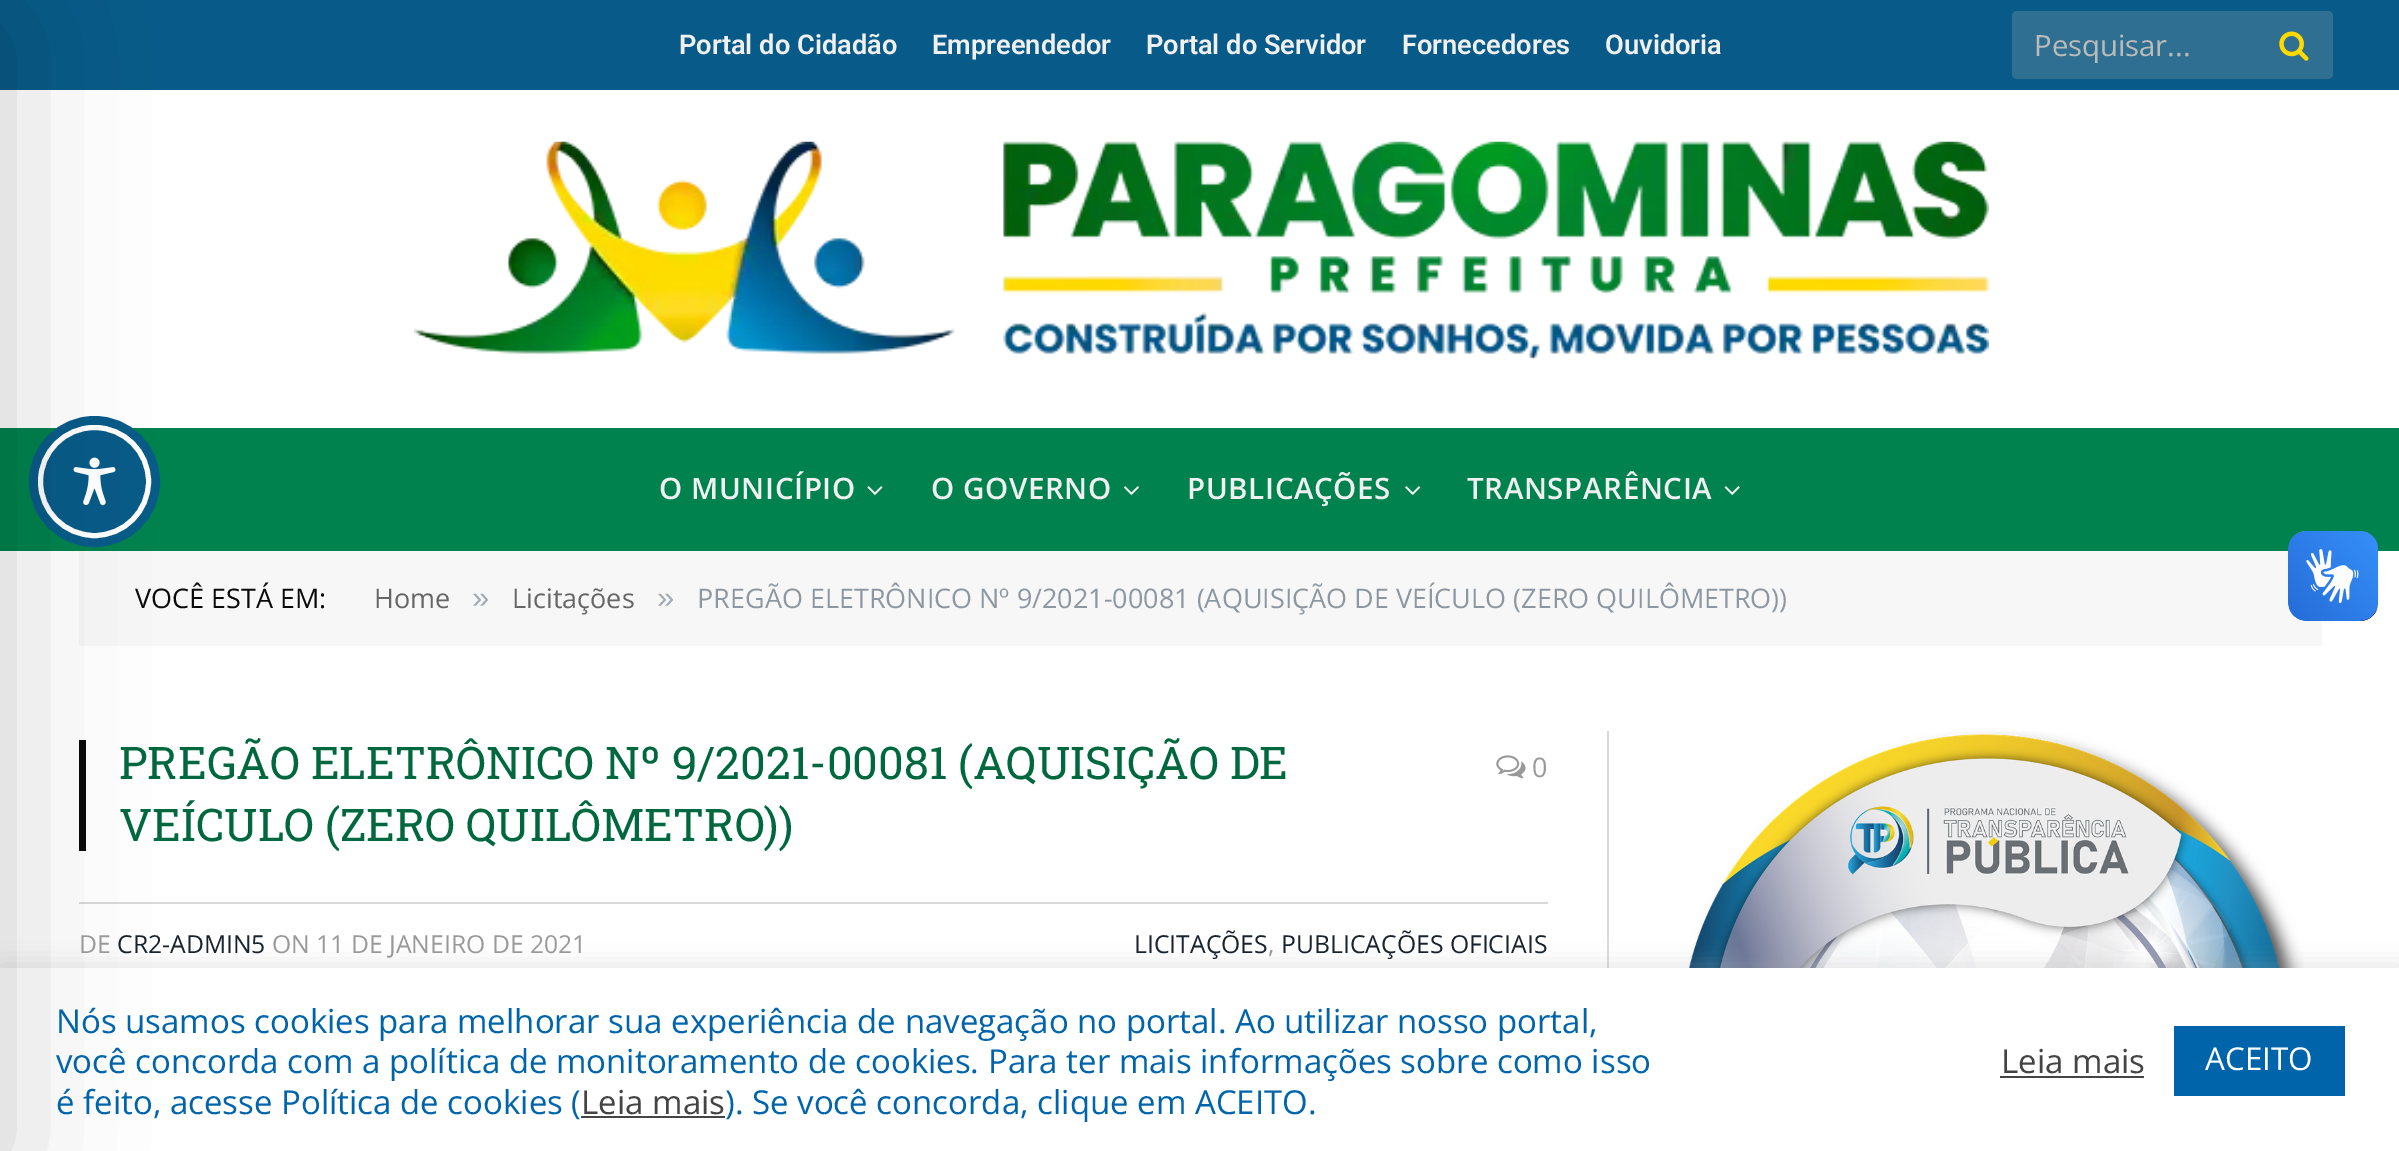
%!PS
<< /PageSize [2399 1151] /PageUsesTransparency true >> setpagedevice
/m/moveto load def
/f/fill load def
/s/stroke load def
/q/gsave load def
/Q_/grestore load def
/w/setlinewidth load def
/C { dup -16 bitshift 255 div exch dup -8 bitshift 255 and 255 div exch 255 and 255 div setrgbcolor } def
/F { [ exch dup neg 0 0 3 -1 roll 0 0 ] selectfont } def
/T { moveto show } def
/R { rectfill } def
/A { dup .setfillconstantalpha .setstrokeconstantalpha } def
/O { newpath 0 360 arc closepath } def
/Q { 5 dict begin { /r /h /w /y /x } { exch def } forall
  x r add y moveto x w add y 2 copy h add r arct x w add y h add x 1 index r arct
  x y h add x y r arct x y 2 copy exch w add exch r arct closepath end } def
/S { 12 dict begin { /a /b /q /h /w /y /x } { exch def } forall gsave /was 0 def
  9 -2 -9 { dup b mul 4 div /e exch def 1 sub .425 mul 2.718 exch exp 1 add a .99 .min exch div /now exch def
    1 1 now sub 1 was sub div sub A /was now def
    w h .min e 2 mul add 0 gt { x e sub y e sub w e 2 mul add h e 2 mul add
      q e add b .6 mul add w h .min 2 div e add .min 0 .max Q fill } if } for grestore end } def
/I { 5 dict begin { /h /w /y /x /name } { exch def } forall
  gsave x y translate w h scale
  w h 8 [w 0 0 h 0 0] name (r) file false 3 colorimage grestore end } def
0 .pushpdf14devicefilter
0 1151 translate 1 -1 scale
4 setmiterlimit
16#FFFFFF C
0 0 2399 1151 R
16#085B88 C
0 0 2399 90 R
16#00824E C
0 428 2399 123 R
16#085B88 C
9 w
94.5 481.5 61 O s
94.5 481.5 54 O q f Q_
16#FFFFFF C
5 w
s
(7.rgb) 73 457 43 49 I
16#F7F7F7 C
79 551 2243 95 R
16#0A0A0A C
79 740 7 111 R
16#D9D9D9 C
79 902 1469 2 R
1607 731 2 237 R
(11.rgb) 1689 731 615 237 I
16#ACABAB C
0 965 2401 185 0 11 .3 S
16#FFFFFF C
0 968 2399 183 R
16#000000 C
-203 23 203 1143 0 67.5 .2 S
/Roboto-SemiBold 27.25 F
16#F0F0F0 C
(Portal do Cidadão) 679 54 T
(Empreendedor) 932 54 T
(Portal do Servidor) 1146 54 T
(Fornecedores) 1402 54 T
(Ouvidoria) 1605 54 T
16#2F6F91 C
2012 11 321 68 5 Q f
/OpenSans-Regular 29.25 F
16#BBBBBB C
(Pesquisar...) 2034 56 T
(1.rgb) 2279 31 30 30 I
(2.rgb) 414 141 1575 218 I
/OpenSans-SemiBold 29.5 F
16#F0F0F0 C
659 499 m .6 0 (O MUNICÍPIO) ashow
(3.rgb) 867 486 16 9 I
931 499 m .6 0 (O GOVERNO) ashow
(4.rgb) 1123 486 16 9 I
1187 499 m .6 0 (PUBLICAÇÕES) ashow
(5.rgb) 1405 486 16 9 I
1467 499 m .6 0 (TRANSPARÊNCIA) ashow
(6.rgb) 1724 486 16 9 I
/OpenSans-Regular 27 F
16#0A0A0A C
(VOCÊ ESTÁ EM:) 135 608 T
16#666666 C
(Home) 374 608 T
/LiberationSans-Regular 31 F
16#A2AAB2 C
(») 472 608 T
/OpenSans-Regular 27 F
16#666666 C
(Licitações) 512 608 T
/LiberationSans-Regular 31 F
16#A2AAB2 C
(») 657 608 T
/OpenSans-Regular 27 F
16#8D97A1 C
(PREGÃO ELETRÔNICO Nº 9/2021-00081 \(AQUISIÇÃO DE VEÍCULO \(ZERO QUILÔMETRO\)\)) 697 608 T
(8.rgb) 2288 531 91 90 I
(9.rgb) 2288 531 90 90 I
/RobotoSlab-Regular 45 F
16#00683E C
(PREGÃO ELETRÔNICO Nº 9/2021-00081 \(AQUISIÇÃO DE) 119 779 T
(VEÍCULO \(ZERO QUILÔMETRO\)\)) 119 841 T
(10.rgb) 1496 755 30 24 I
/OpenSans-Regular 27 F
16#999999 C
(0) 1532 777 T
/OpenSans-Regular 24.75 F
(DE) 79 953 T
16#19232D C
(CR2-ADMIN5) 117 953 T
16#999999 C
(ON 11 DE JANEIRO DE 2021) 272 953 T
16#19232D C
(LICITAÇÕES) 1134 953 T
16#999999 C
(,) 1268 953 T
16#19232D C
(PUBLICAÇÕES OFICIAIS) 1281 953 T
/OpenSans-Regular 33 F
16#0064AB C
(Nós usamos cookies para melhorar sua experiência de navegação no portal. Ao utilizar nosso portal,) 56 1033 T
(você concorda com a política de monitoramento de cookies. Para ter mais informações sobre como isso) 56 1073 T
(é feito, acesse Política de cookies \() 56 1114 T
16#444444 C
(Leia mais) 581 1114 T
581 1116 144 2 R
16#0064AB C
(\). Se você concorda, clique em ACEITO.) 725 1114 T
16#444444 C
(Leia mais) 2001 1073 T
2000 1076 144 2 R
16#0064AB C
2174 1026 171 70 R
/OpenSans-Regular 31.5 F
16#FFFFFF C
(ACEITO) 2205 1070 T
.poppdf14devicefilter showpage
